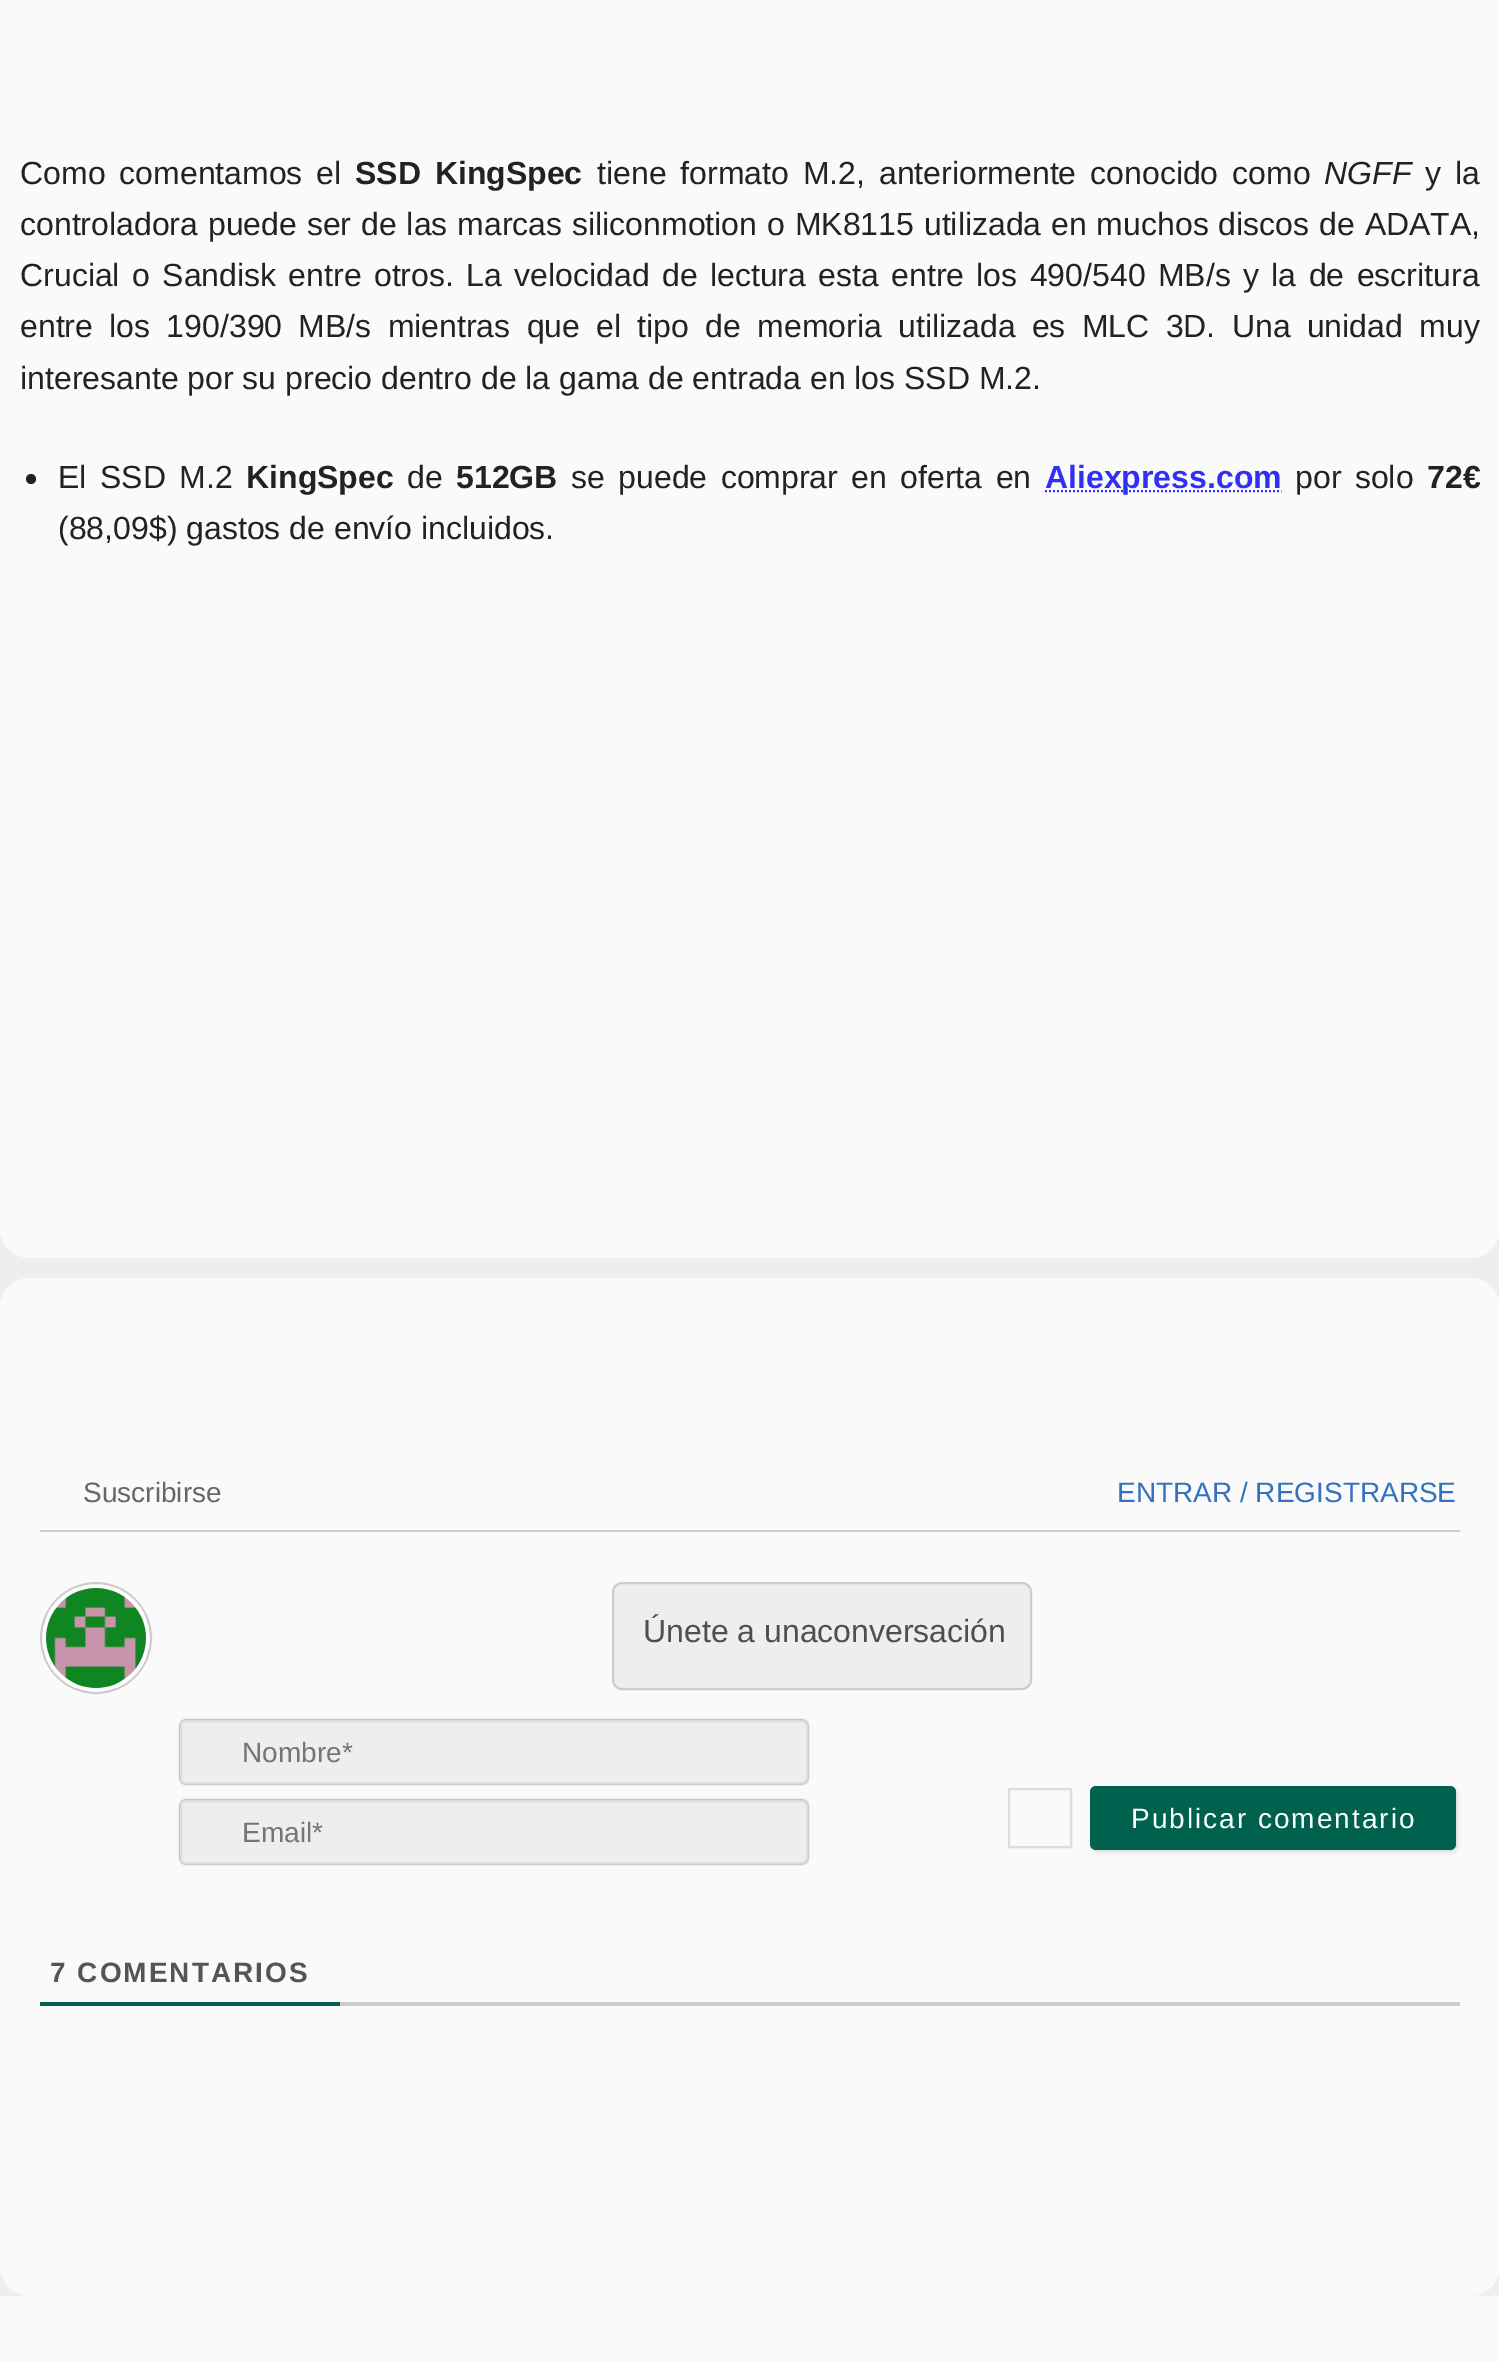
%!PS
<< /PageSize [1499 2362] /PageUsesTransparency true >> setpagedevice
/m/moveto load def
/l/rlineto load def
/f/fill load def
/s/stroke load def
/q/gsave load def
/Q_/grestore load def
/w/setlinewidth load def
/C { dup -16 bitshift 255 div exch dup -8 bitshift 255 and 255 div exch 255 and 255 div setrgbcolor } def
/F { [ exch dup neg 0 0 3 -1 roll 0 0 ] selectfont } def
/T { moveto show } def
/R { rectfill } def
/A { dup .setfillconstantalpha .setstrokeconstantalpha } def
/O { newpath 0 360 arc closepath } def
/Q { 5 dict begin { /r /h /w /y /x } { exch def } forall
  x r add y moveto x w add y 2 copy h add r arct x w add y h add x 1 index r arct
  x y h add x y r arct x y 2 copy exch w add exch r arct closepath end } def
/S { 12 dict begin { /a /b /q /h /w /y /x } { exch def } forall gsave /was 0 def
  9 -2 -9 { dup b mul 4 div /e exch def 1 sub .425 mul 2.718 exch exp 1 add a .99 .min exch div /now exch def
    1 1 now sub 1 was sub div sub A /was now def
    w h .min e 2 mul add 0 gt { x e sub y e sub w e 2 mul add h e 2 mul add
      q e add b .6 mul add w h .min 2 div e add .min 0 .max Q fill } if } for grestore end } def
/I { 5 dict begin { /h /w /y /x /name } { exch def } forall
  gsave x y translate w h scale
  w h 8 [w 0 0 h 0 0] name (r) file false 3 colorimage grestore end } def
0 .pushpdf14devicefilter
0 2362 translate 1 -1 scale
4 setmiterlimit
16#EEEEEE C
0 0 1499 2362 R
16#FAFAFA C
0 -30 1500 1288 30 Q f
/LiberationSans-Regular 32 F
16#222222 C
20 184 m 5 0 32 (Como comentamos el) widthshow
/LiberationSans-Bold 32 F
355 184 m 5 0 32 (SSD KingSpec) widthshow
/LiberationSans-Regular 32 F
597 184 m 5 0 32 (tiene formato M.2, anteriormente conocido como) widthshow
/LiberationSans-Italic 32 F
(NGFF) 1324 184 T
/LiberationSans-Regular 32 F
1425 184 m 5 0 32 (y la) widthshow
20 235 m 1 0 32 (controladora puede ser de las marcas siliconmotion o MK8115 utilizada en muchos discos de ADATA,) widthshow
20 286 m 3.5 0 32 (Crucial o Sandisk entre otros. La velocidad de lectura esta entre los 490/540 MB/s y la de escritura) widthshow
20 337 m 7.4 0 32 (entre los 190/390 MB/s mientras que el tipo de memoria utilizada es MLC 3D. Una unidad muy) widthshow
(interesante por su precio dentro de la gama de entrada en los SSD M.2.) 20 389 T
31 479 5 O f
58 488 m 4.5 0 32 (El SSD M.2) widthshow
/LiberationSans-Bold 32 F
(KingSpec) 246 488 T
/LiberationSans-Regular 32 F
(de) 407 488 T
/LiberationSans-Bold 32 F
(512GB) 456 488 T
/LiberationSans-Regular 32 F
571 488 m 4.5 0 32 (se puede comprar en oferta en) widthshow
16#2F2FF6 C
2 w
[2 2] 0 setdash
1045 491 m 236.5 0 l s
/LiberationSans-Bold 32 F
(Aliexpress.com) 1045 488 T
/LiberationSans-Regular 32 F
16#222222 C
1295 488 m 4.5 0 32 (por solo) widthshow
/LiberationSans-Bold 32 F
(72€) 1427 488 T
/LiberationSans-Regular 32 F
(\(88,09$\) gastos de envío incluidos.) 58 539 T
16#FAFAFA C
0 1278 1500 1018 30 Q f
16#CCCCCC C
40 1530 1420 2 R
/LiberationSans-Regular 28 F
16#666666 C
(Suscribirse) 83 1502 T
16#3272BF C
(ENTRAR / REGISTRARSE) 1117 1502 T
16#FFFFFF C
96 1638 55 O q f Q_
16#CCCCCC C
[] 0 setdash
s
(1.rgb) 46 1588 100 100 I
16#EEEEEE C
613 1583 418 106 9 Q q f Q_
16#CCCCCC C
s
/LiberationSans-Regular 32 F
16#4F4F4F C
(Únete a unaconversación) 643 1642 T
16#555555 C
180 1720 628 64 6 1 1 S
16#EEEEEE C
181 1721 626 62 5 Q q f Q_
16#DDDDDD C
s
/LiberationSans-Regular 28 F
16#757575 C
(Nombre*) 242 1762 T
16#555555 C
180 1800 628 64 6 1 1 S
16#EEEEEE C
181 1801 626 62 5 Q q f Q_
16#DDDDDD C
s
16#757575 C
(Email*) 242 1842 T
16#DDDDDD C
1009 1789 62 58 rectstroke
16#BBBBBB C
1094 1790 362 60 4 3 1 S
16#00624E C
1090 1786 366 64 6 Q f
16#FFFFFF C
1131 1828 m 2 0 (Publicar comentario) ashow
16#CCCCCC C
340 2002 1120 4 R
16#00624E C
40 2002 300 4 R
/LiberationSans-Bold 28 F
16#555555 C
50 1982 m 2 0 (7 COMENTARIOS) ashow
16#FAFAFA C
0 2296 1499 66 R
.poppdf14devicefilter showpage
